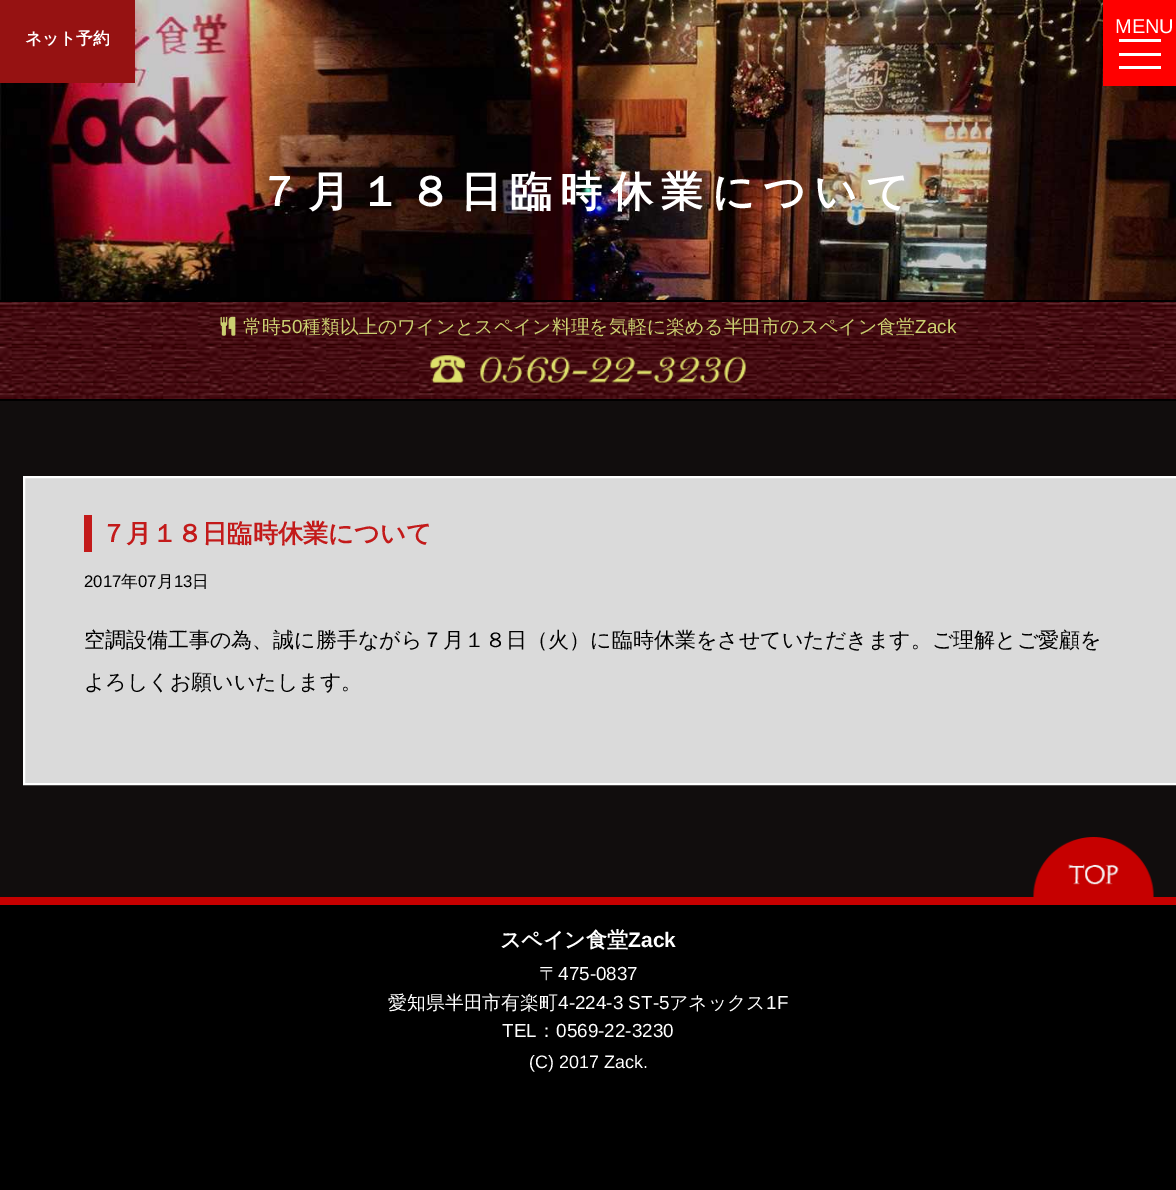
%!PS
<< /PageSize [1176 1190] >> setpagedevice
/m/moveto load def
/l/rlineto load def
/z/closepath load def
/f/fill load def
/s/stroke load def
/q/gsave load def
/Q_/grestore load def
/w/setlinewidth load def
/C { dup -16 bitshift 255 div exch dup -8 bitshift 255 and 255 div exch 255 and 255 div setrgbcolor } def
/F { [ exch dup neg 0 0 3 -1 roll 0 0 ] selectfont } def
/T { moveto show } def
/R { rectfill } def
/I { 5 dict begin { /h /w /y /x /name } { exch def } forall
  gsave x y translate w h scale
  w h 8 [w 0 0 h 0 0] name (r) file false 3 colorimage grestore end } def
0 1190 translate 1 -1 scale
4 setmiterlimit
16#000000 C
0 0 1176 1190 R
(1.rgb) 0 0 1176 300 I
16#FF0000 C
1103 0 73 86 R
/LiberationSans-Regular 20 F
16#FFFFFF C
(MENU) 1115 33 T
1119 53 42 3 R
1119 39 42 3 R
1119 66 42 3 R
16#961212 C
0 0 135 83 R
/WenQuanYiZenHei-Bold 16.75 F
16#FFFFFF C
(ネット予約) 25 44 T
/WenQuanYiZenHei-Bold 42 F
258 206 m 8.4 0 (７月１８日臨時休業について) ashow
(2.rgb) 0 302 1176 97 I
(3.rgb) 220 316 16 20 I
/WenQuanYiZenHei-Medium 18.9 F
16#CBD071 C
(常時) 243 333 T
/LiberationSans-Regular 18.9 F
(50) 281 333 T
/WenQuanYiZenHei-Medium 18.9 F
(種類以上のワインとスペイン料理を気軽に楽める半田市のスペイン食堂) 302 333 T
/LiberationSans-Regular 18.9 F
(Zack) 915 333 T
(4.rgb) 430 354 316 29 I
16#110D0D C
0 401 1176 496 R
16#DADADA C
24 477 m 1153 0 l 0 307 l -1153 0 l z q f Q_
16#FFFFFF C
2 w
s
16#C31A1A C
84 515 8 37 R
/WenQuanYiZenHei-Bold 25.25 F
(７月１８日臨時休業について) 101 542 T
/LiberationSans-Regular 16.75 F
16#000000 C
(2017) 84 587 T
/WenQuanYiZenHei-Medium 16.75 F
(年) 121 587 T
/LiberationSans-Regular 16.75 F
(07) 138 587 T
/WenQuanYiZenHei-Medium 16.75 F
(月) 157 587 T
/LiberationSans-Regular 16.75 F
(13) 174 587 T
/WenQuanYiZenHei-Medium 16.75 F
(日) 192 587 T
/WenQuanYiZenHei-Medium 21 F
(空調設備工事の為、誠に勝手ながら７月１８日（火）に臨時休業をさせていただきます。ご理解とご愛顧を) 84 647 T
(よろしくお願いいたします。) 84 689 T
16#C60000 C
0 897 1176 8 R
(5.rgb) 1033 837 121 60 I
/WenQuanYiZenHei-Bold 21 F
16#FFFFFF C
(スペイン食堂) 500 947 T
/LiberationSans-Bold 21 F
(Zack) 628 947 T
/WenQuanYiZenHei-Medium 18.9 F
(〒) 539 980 T
/LiberationSans-Regular 18.9 F
(475-0837) 558 980 T
/WenQuanYiZenHei-Medium 18.9 F
(愛知県半田市有楽町) 388 1009 T
/LiberationSans-Regular 18.9 F
(4-224-3 ST-5) 558 1009 T
/WenQuanYiZenHei-Medium 18.9 F
(アネックス) 669 1009 T
/LiberationSans-Regular 18.9 F
(1F) 766 1009 T
(TEL) 502 1037 T
/WenQuanYiZenHei-Medium 18.9 F
(：) 537 1037 T
/LiberationSans-Regular 18.9 F
(0569-22-3230) 556 1037 T
/LiberationSans-Regular 18 F
(\(C\) 2017 Zack.) 529 1068 T
showpage
